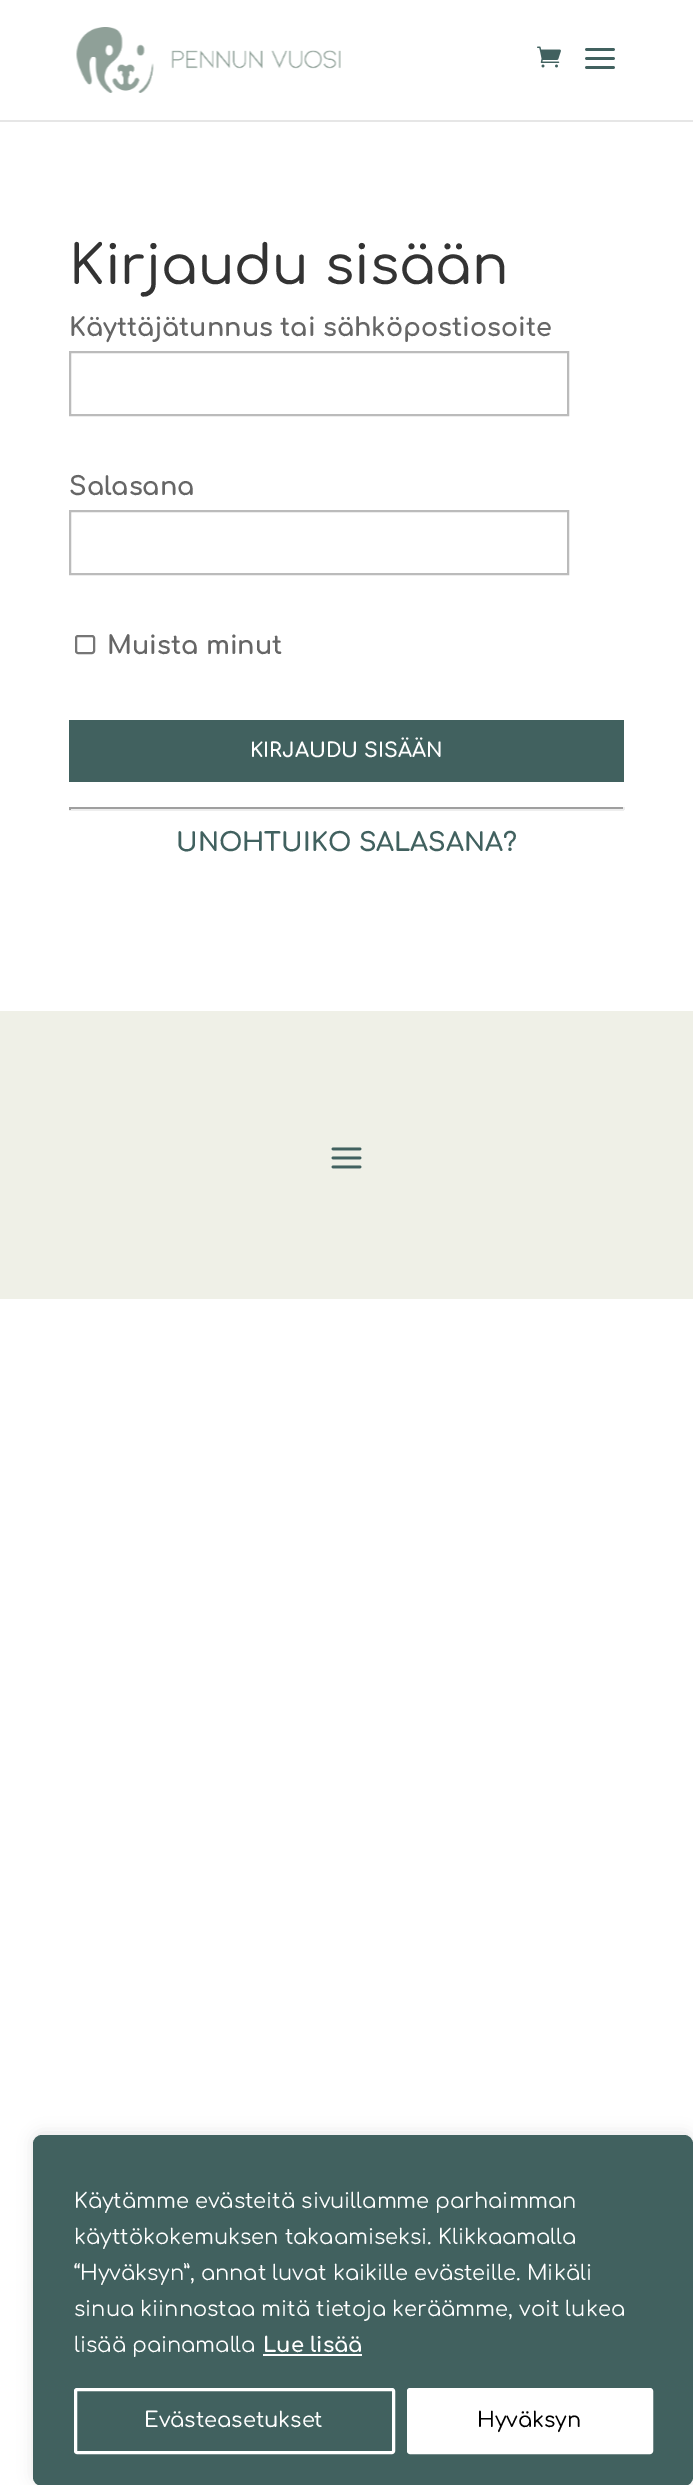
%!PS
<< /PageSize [693 2485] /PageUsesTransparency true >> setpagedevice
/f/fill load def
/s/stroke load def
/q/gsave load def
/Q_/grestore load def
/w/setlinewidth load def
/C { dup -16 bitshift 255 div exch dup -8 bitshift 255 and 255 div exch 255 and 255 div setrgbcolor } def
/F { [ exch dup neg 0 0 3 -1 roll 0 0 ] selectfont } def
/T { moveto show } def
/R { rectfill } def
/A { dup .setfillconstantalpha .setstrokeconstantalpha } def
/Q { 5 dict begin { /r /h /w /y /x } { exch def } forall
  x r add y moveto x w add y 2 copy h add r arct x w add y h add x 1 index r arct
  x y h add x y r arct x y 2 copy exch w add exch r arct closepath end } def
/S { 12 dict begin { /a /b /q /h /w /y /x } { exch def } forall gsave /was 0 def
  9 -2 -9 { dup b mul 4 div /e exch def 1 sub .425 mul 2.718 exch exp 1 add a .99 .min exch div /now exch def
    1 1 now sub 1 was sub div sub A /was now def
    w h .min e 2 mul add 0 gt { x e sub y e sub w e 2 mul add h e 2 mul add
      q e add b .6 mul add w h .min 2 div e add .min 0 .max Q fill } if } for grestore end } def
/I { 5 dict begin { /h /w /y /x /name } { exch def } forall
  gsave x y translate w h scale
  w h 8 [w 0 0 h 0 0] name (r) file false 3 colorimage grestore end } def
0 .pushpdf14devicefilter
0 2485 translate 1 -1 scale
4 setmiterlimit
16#FFFFFF C
0 0 693 2485 R
16#E6E6E6 C
0 120 693 2 R
(1.rgb) 76 27 265 66 I
(2.rgb) 537 46 24 22 I
(3.rgb) 585 48 30 21 I
/Comfortaa-Medium 54 F
16#333333 C
(Kirjaudu sisään) 69 284 T
/Comfortaa-Bold 25.5 F
16#666666 C
(Käyttäjätunnus tai sähköpostiosoite) 69 336 T
16#BBBBBB C
2 w
70 352 498 63 rectstroke
16#666666 C
(Salasana) 69 495 T
16#BBBBBB C
70 511 498 63 rectstroke
16#767676 C
76 636 18 17 2 Q s
16#666666 C
(Muista minut) 107 654 T
16#41615F C
69 720 555 62 R
/Comfortaa-Bold 20 F
16#FFFFFF C
(KIRJAUDU SISÄÄN) 250 757 T
16#9F9F9F C
69 807 555 2 R
16#EEEEEE C
623 807 2 3 R
69 809 555 2 R
16#9F9F9F C
69 807 2 3 R
/Comfortaa-Bold 25.5 F
16#41615F C
(UNOHTUIKO SALASANA?) 176 851 T
16#EFF0E7 C
0 1011 693 288 R
(4.rgb) 331 1147 31 22 I
16#ACABAB C
33 2133 660 351 9 7.5 .3 S
16#41615F C
34 2136 658 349 8 Q q f Q_
s
/Comfortaa-Regular 21 F
16#FFFFFF C
(Käytämme evästeitä sivuillamme parhaimman) 74 2208 T
(käyttökokemuksen takaamiseksi. Klikkaamalla) 74 2244 T
(“Hyväksyn”, annat luvat kaikille evästeille. Mikäli) 74 2280 T
(sinua kiinnostaa mitä tietoja keräämme, voit lukea) 74 2316 T
(lisää painamalla) 74 2352 T
/Comfortaa-Bold 21 F
(Lue lisää) 263 2352 T
263 2354 99 2 R
3 w
75.5 2389.5 318 63 1.5 Q s
/Comfortaa-Medium 21 F
(Evästeasetukset) 144 2427 T
408.5 2389.5 243 63 1.5 Q q f Q_
s
16#000000 C
(Hyväksyn) 477 2427 T
.poppdf14devicefilter showpage
